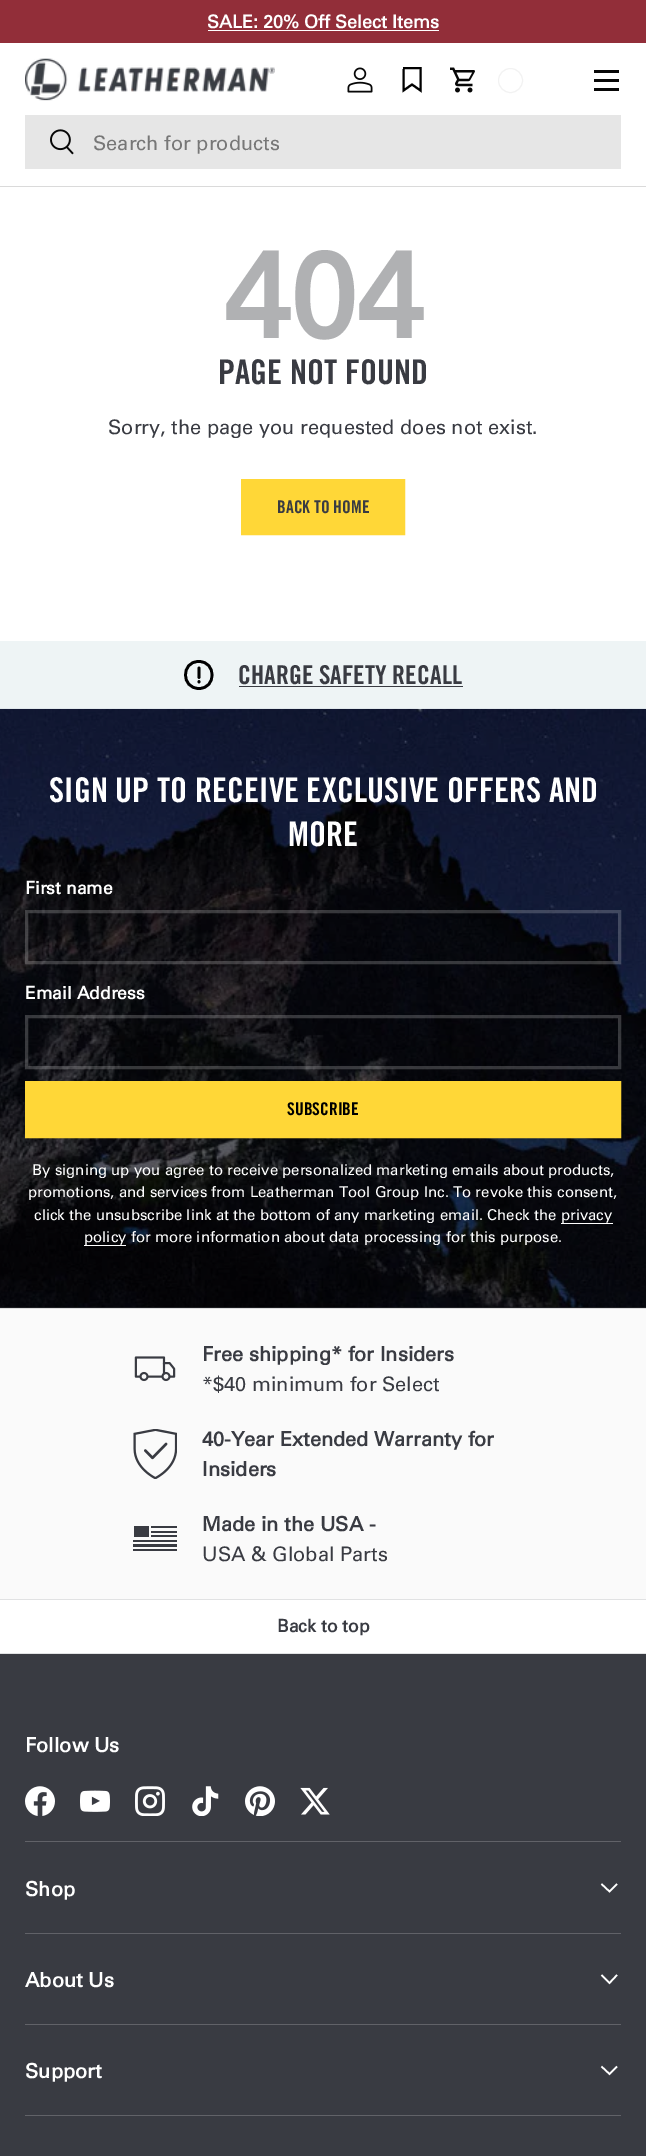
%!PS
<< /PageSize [646 2156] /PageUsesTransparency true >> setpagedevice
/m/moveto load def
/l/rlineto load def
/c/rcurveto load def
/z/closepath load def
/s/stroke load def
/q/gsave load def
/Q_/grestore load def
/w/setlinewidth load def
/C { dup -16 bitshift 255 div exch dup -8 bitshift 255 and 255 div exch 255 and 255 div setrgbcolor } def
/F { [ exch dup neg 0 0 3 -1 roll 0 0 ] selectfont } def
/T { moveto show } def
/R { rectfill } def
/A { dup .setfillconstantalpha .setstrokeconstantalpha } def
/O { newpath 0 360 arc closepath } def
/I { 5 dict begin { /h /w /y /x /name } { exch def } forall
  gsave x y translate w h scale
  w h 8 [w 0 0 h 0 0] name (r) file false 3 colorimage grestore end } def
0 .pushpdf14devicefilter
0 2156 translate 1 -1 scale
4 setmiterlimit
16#FFFFFF C
0 0 646 2156 R
16#922E39 C
0 0 646 43 R
/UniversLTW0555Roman-Bold 18 F
16#FFFFFF C
(SALE: 20% Off Select Items) 207 28 T
208 30 231 1 R
16#DADADA C
0 186 646 1 R
(1.rgb) 25 58 250 43 I
(2.rgb) 347 67 26 26 I
16#000000 C
2 w
403 68 m 17.5 0 l 0 22.5 l -8.5 -6 l -8.5 6 l 0 -22.5 l z s
(3.rgb) 450 67 25 26 I
16#F2F2F2 C
1 w
510.5 80.5 12 O s
16#070707 C
594 70 25 3 R
594 88 25 3 R
594 79 25 3 R
16#E6E6E6 C
25 115 596 54 R
(4.rgb) 50 129 24 26 I
/UniversLTW0555Roman-Regular 20 F
16#777777 C
(Search for products) 93 150 T
/UniversLTW0555Roman-Bold 120 F
16#B0B1B3 C
(404) 223 338 T
/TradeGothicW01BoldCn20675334-Bold 34.1 F
16#393B42 C
(PAGE NOT FOUND) 218 384 T
/UniversLTW0555Roman-Regular 20 F
(Sorry, the page you requested does not exist.) 108 434 T
q 244 482 m 158 0 l 0 50 l -158 0 l z clip newpath
<< /ShadingType 2 /ColorSpace /DeviceRGB /Coords [-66 449 395 564] /Extend [true true] /Function << /FunctionType 3 /Domain [0 1] /Functions [<< /FunctionType 2 /Domain [0 1] /C0 [.89 .769 .275] /C1 [.89 .769 .275] /N 1 >> << /FunctionType 2 /Domain [0 1] /C0 [1 .843 .216] /C1 [1 .843 .216] /N 1 >>] /Bounds [.6] /Encode [0 1 0 1] >> >> shfill Q_
16#FFD737 C
3 w
242.5 480.5 161 53 rectstroke
/TradeGothicW01BoldCn20675334-Bold 17.5 F
16#393B42 C
(BACK TO HOME) 277 513 T
16#EEF4F5 C
0 641 646 68 R
16#000000 C
2.7 w
1 setlinecap
198.5 661.5 m -17.5 0 -17.5 27 .5 27 c 17.5 0 17.5 -27 0 -27 c z 199 668 m 0 9.5 l 199 681.5 m 0 .5 l s
/TradeGothicW01BoldCn20675334-Bold 26 F
16#393B42 C
(CHARGE SAFETY RECALL) 238 684 T
239 686 224 1 R
16#222328 C
0 1307 646 1 R
(5.rgb) 0 708 646 600 I
/TradeGothicW01BoldCn20675334-Bold 34.1 F
16#FFFFFF C
(SIGN UP TO RECEIVE EXCLUSIVE OFFERS AND) 49 802 T
(MORE) 288 846 T
/UniversLTW0555Roman-Bold 17.5 F
(First name) 25 894 T
0.2 A
3 w
0 setlinecap
26.5 911.5 593 51 rectstroke
1 A
(Email Address) 25 999 T
0.2 A
26.5 1016.5 593 51 rectstroke
1 A
q 28 1084 m 590 0 l 0 51 l -590 0 l z clip newpath
<< /ShadingType 2 /ColorSpace /DeviceRGB /Coords [-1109 900 573 1319] /Extend [true true] /Function << /FunctionType 3 /Domain [0 1] /Functions [<< /FunctionType 2 /Domain [0 1] /C0 [.89 .769 .271] /C1 [.89 .769 .271] /N 1 >> << /FunctionType 2 /Domain [0 1] /C0 [1 .843 .216] /C1 [1 .843 .216] /N 1 >>] /Bounds [.6] /Encode [0 1 0 1] >> >> shfill Q_
16#FFD737 C
26.5 1082.5 593 54 rectstroke
/TradeGothicW01BoldCn20675334-Bold 17.5 F
16#000000 C
(SUBSCRIBE) 287 1115 T
/UniversLTW0555Roman-Regular 15 F
16#FFFFFF C
(By signing up you agree to receive personalized marketing emails about products,) 32 1175 T
(promotions, and services from Leatherman Tool Group Inc. To revoke this consent,) 28 1197 T
(click the unsubscribe link at the bottom of any marketing email. Check the privacy) 34 1220 T
(policy for more information about data processing for this purpose.) 84 1242 T
561 1223 52 1 R
84 1245 42 1 R
16#FAFAFA C
0 1309 646 290 R
16#DDDDDE C
0 1308 646 1 R
(6.rgb) 134 1356 42 26 I
/UniversLTW0555Roman-Bold 20 F
16#393B42 C
(Free shipping* for Insiders) 202 1361 T
/UniversLTW0555Roman-Regular 20 F
(*$40 minimum for Select) 202 1391 T
(7.rgb) 133 1429 44 50 I
/UniversLTW0555Roman-Bold 20 F
(40-Year Extended Warranty for) 202 1446 T
(Insiders) 202 1476 T
151 1526 26 2 R
151 1531 26 2 R
151 1535 26 2 R
133 1540 44 2 R
133 1544 44 3 R
133 1549 44 2 R
134 1526 15 11 R
(Made in the USA -) 202 1531 T
/UniversLTW0555Roman-Regular 20 F
(USA & Global Parts) 202 1561 T
16#E1E2E3 C
0 1599 646 1 R
0 1653 646 1 R
/UniversLTW0555Roman-Bold 17.5 F
16#393B42 C
(Back to top) 277 1632 T
0 1654 646 502 R
/UniversLTW0555Roman-Bold 20 F
16#FFFFFF C
(Follow Us) 25 1752 T
(8.rgb) 25 1786 30 30 I
(9.rgb) 80 1790 30 22 I
(10.rgb) 135 1786 30 30 I
(11.rgb) 192 1786 27 30 I
(12.rgb) 245 1786 30 30 I
(13.rgb) 300 1787 30 28 I
16#616268 C
25 1841 596 1 R
25 1933 596 1 R
16#FFFFFF C
(Shop) 25 1896 T
1.6 w
617 1884 m -7.5 7.5 l -8 -7.5 l s
16#616268 C
25 2024 596 1 R
16#FFFFFF C
(About Us) 25 1987 T
617 1975 m -7.5 8 l -8 -8 l s
16#616268 C
25 2115 596 1 R
16#FFFFFF C
(Support) 25 2078 T
617 2066.5 m -7.5 7.5 l -8 -7.5 l s
.poppdf14devicefilter showpage
